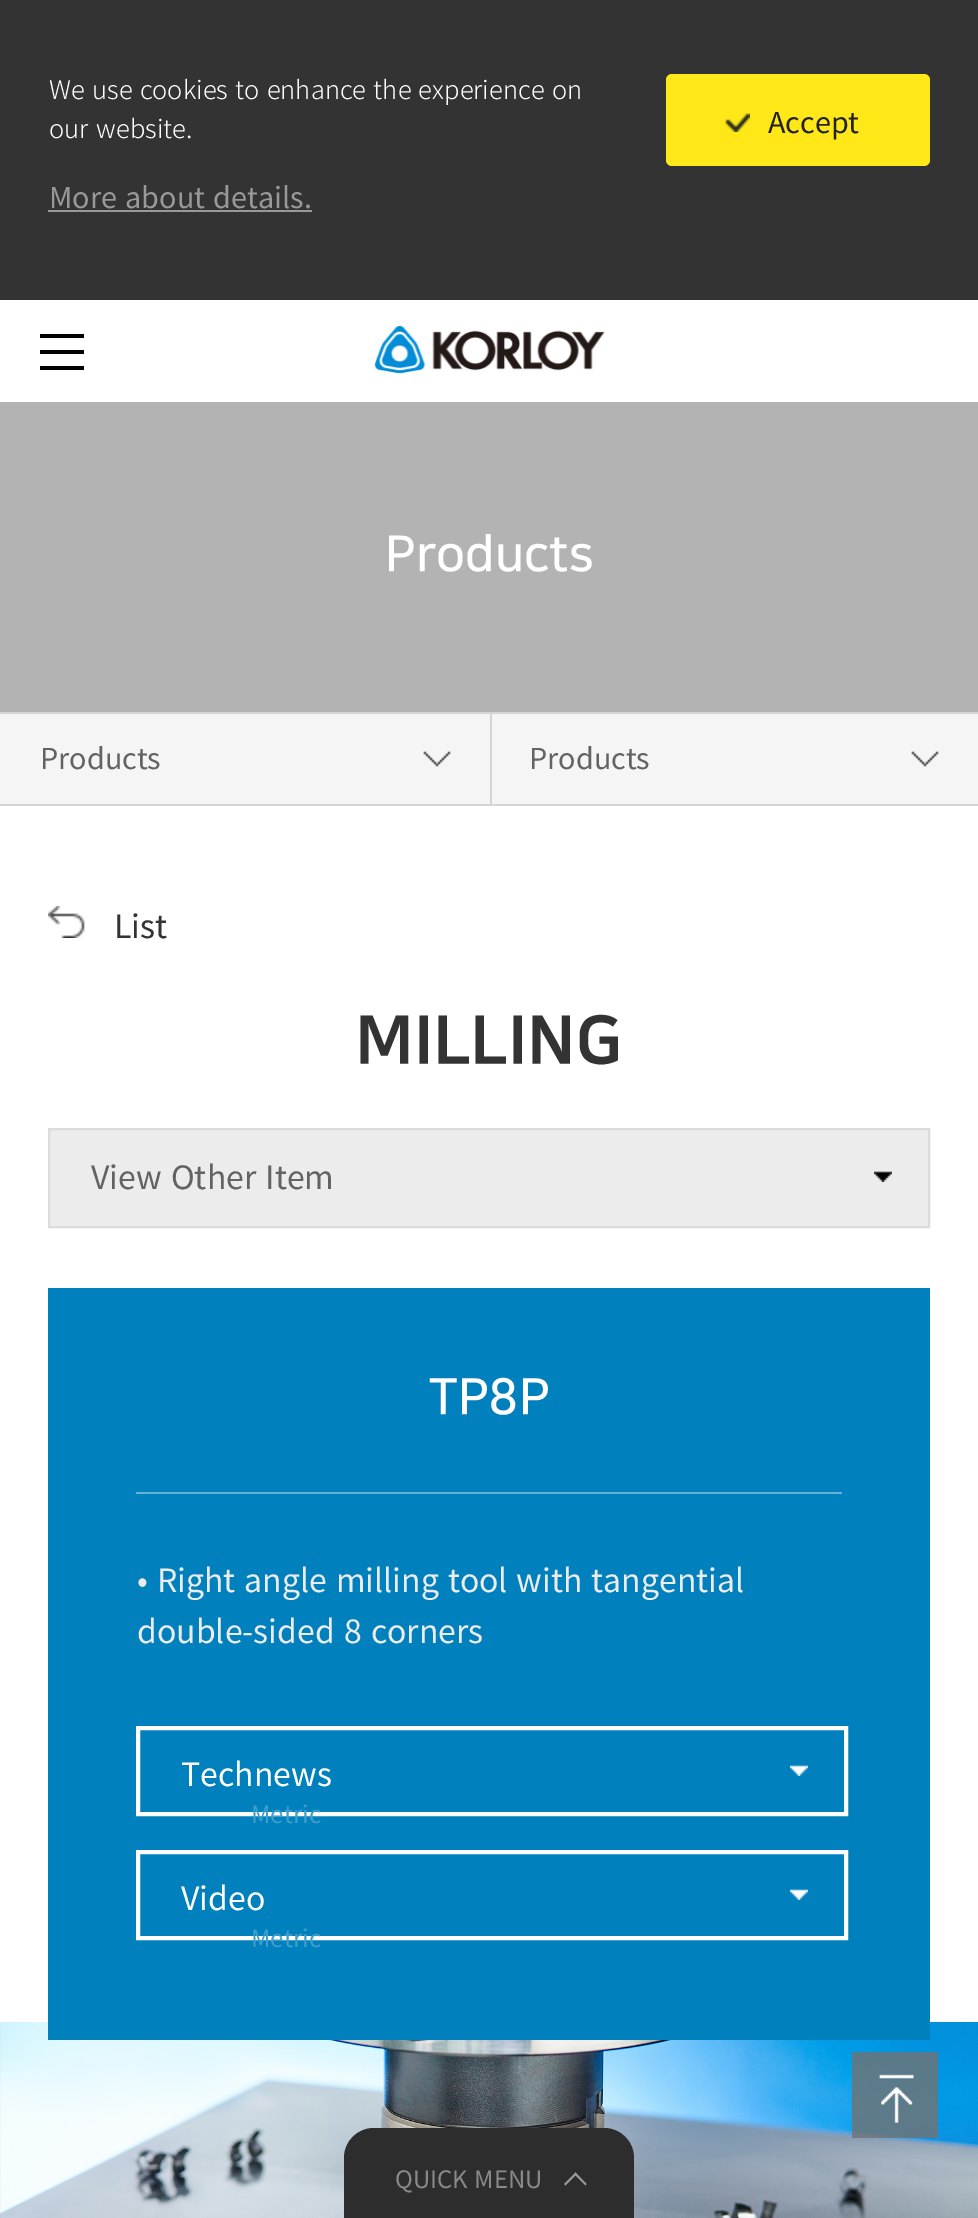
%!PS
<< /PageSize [978 2218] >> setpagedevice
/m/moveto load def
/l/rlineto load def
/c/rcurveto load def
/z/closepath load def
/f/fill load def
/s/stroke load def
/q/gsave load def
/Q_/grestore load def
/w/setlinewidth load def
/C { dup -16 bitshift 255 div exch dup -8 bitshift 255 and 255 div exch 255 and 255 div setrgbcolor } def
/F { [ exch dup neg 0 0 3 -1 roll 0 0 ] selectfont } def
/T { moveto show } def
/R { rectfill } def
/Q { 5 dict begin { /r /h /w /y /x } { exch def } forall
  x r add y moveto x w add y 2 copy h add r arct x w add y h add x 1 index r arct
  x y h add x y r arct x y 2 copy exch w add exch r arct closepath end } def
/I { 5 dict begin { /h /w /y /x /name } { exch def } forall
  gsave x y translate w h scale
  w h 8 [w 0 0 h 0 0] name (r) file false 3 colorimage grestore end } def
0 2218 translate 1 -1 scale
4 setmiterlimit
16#FFFFFF C
0 0 978 2218 R
16#333333 C
0 0 978 300 R
/NotoSansKR-Light 25.6 F
16#FFFFFF C
49 99 m 1.5 0 32 (We use cookies to enhance the experience on) widthshow
49 138 m 2 0 32 (our website.) widthshow
16#FFE718 C
666 74 264 92 6 Q f
(1.rgb) 725 113 25 19 I
/NotoSansKR-Regular 28.75 F
16#222222 C
(Accept) 768 133 T
16#999999 C
49 208 m 2 0 32 (More about details.) widthshow
48 210 264 2 R
16#000000 C
40 334 44 4 R
40 350 44 4 R
40 366 44 4 R
(2.rgb) 374 326 231 48 I
16#B3B3B3 C
0 402 978 310 R
/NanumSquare-Bold 49.5 F
16#FFFFFF C
(Products) 385 570 T
16#F5F5F5 C
0 714 978 90 R
16#D5D5D5 C
0 712 978 2 R
0 804 978 2 R
(3.rgb) 423 751 28 16 I
/NotoSansKR-Regular 28.75 F
16#636363 C
(Products) 40 769 T
(3.rgb) 911 751 28 16 I
16#D5D5D5 C
490 714 2 90 R
16#636363 C
(Products) 529 769 T
(4.rgb) 48 906 37 32 I
/NotoSansKR-Regular 32 F
16#333333 C
(List) 114 938 T
/NanumSquare-ExtraBold 67 F
(MILLING) 355 1062 T
16#ECECEC C
49 1129 m 880 0 l 0 98 l -880 0 l z q f Q_
16#DCDCDC C
2 w
s
/NotoSansKR-Regular 32 F
16#636363 C
91 1189 m 2 0 32 (View Other Item) widthshow
(5.rgb) 874 1171 18 11 I
(7.rgb) 0 2022 978 196 I
16#0080BC C
48 1288 882 752 R
16#66B3D7 C
136 1492 706 2 R
/NanumSquare-Bold 50 F
16#FFFFFF C
(TP8P) 429 1413 T
/NotoSansKR-Regular 32 F
16#ECECEC C
137 1592 m 1.75 0 32 (• Right angle milling tool with tangential) widthshow
137 1643 m 2 0 32 (double-sided 8 corners) widthshow
16#FFFFFF C
4 w
138 1728 708 86 rectstroke
(Technews) 181 1786 T
(6.rgb) 790 1765 18 11 I
/NotoSansKR-Regular 24 F
16#3E9FCC C
(Metric) 251 1823 T
16#FFFFFF C
138 1852 708 86 rectstroke
/NotoSansKR-Regular 32 F
(Video) 181 1910 T
(6.rgb) 790 1889 18 11 I
/NotoSansKR-Regular 24 F
16#3E9FCC C
(Metric) 251 1947 T
(8.rgb) 852 2052 86 86 I
16#2D2D2D C
374 2128 m 230 0 l 16.5 0 30 13.5 30 30 c 0 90 l -290 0 l 0 -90 l 0 -16.5 13.5 -30 30 -30 c z f
16#898989 C
395 2188 m 1 0 32 (QUICK MENU) widthshow
16#999999 C
565.5 2185.5 m -1.5 -1.5 l 11.5 -11.5 l 1.5 1.5 l z f
585.5 2185.5 m -11.5 -11.5 l 1.5 -1.5 l 11 11.5 l z f
showpage
